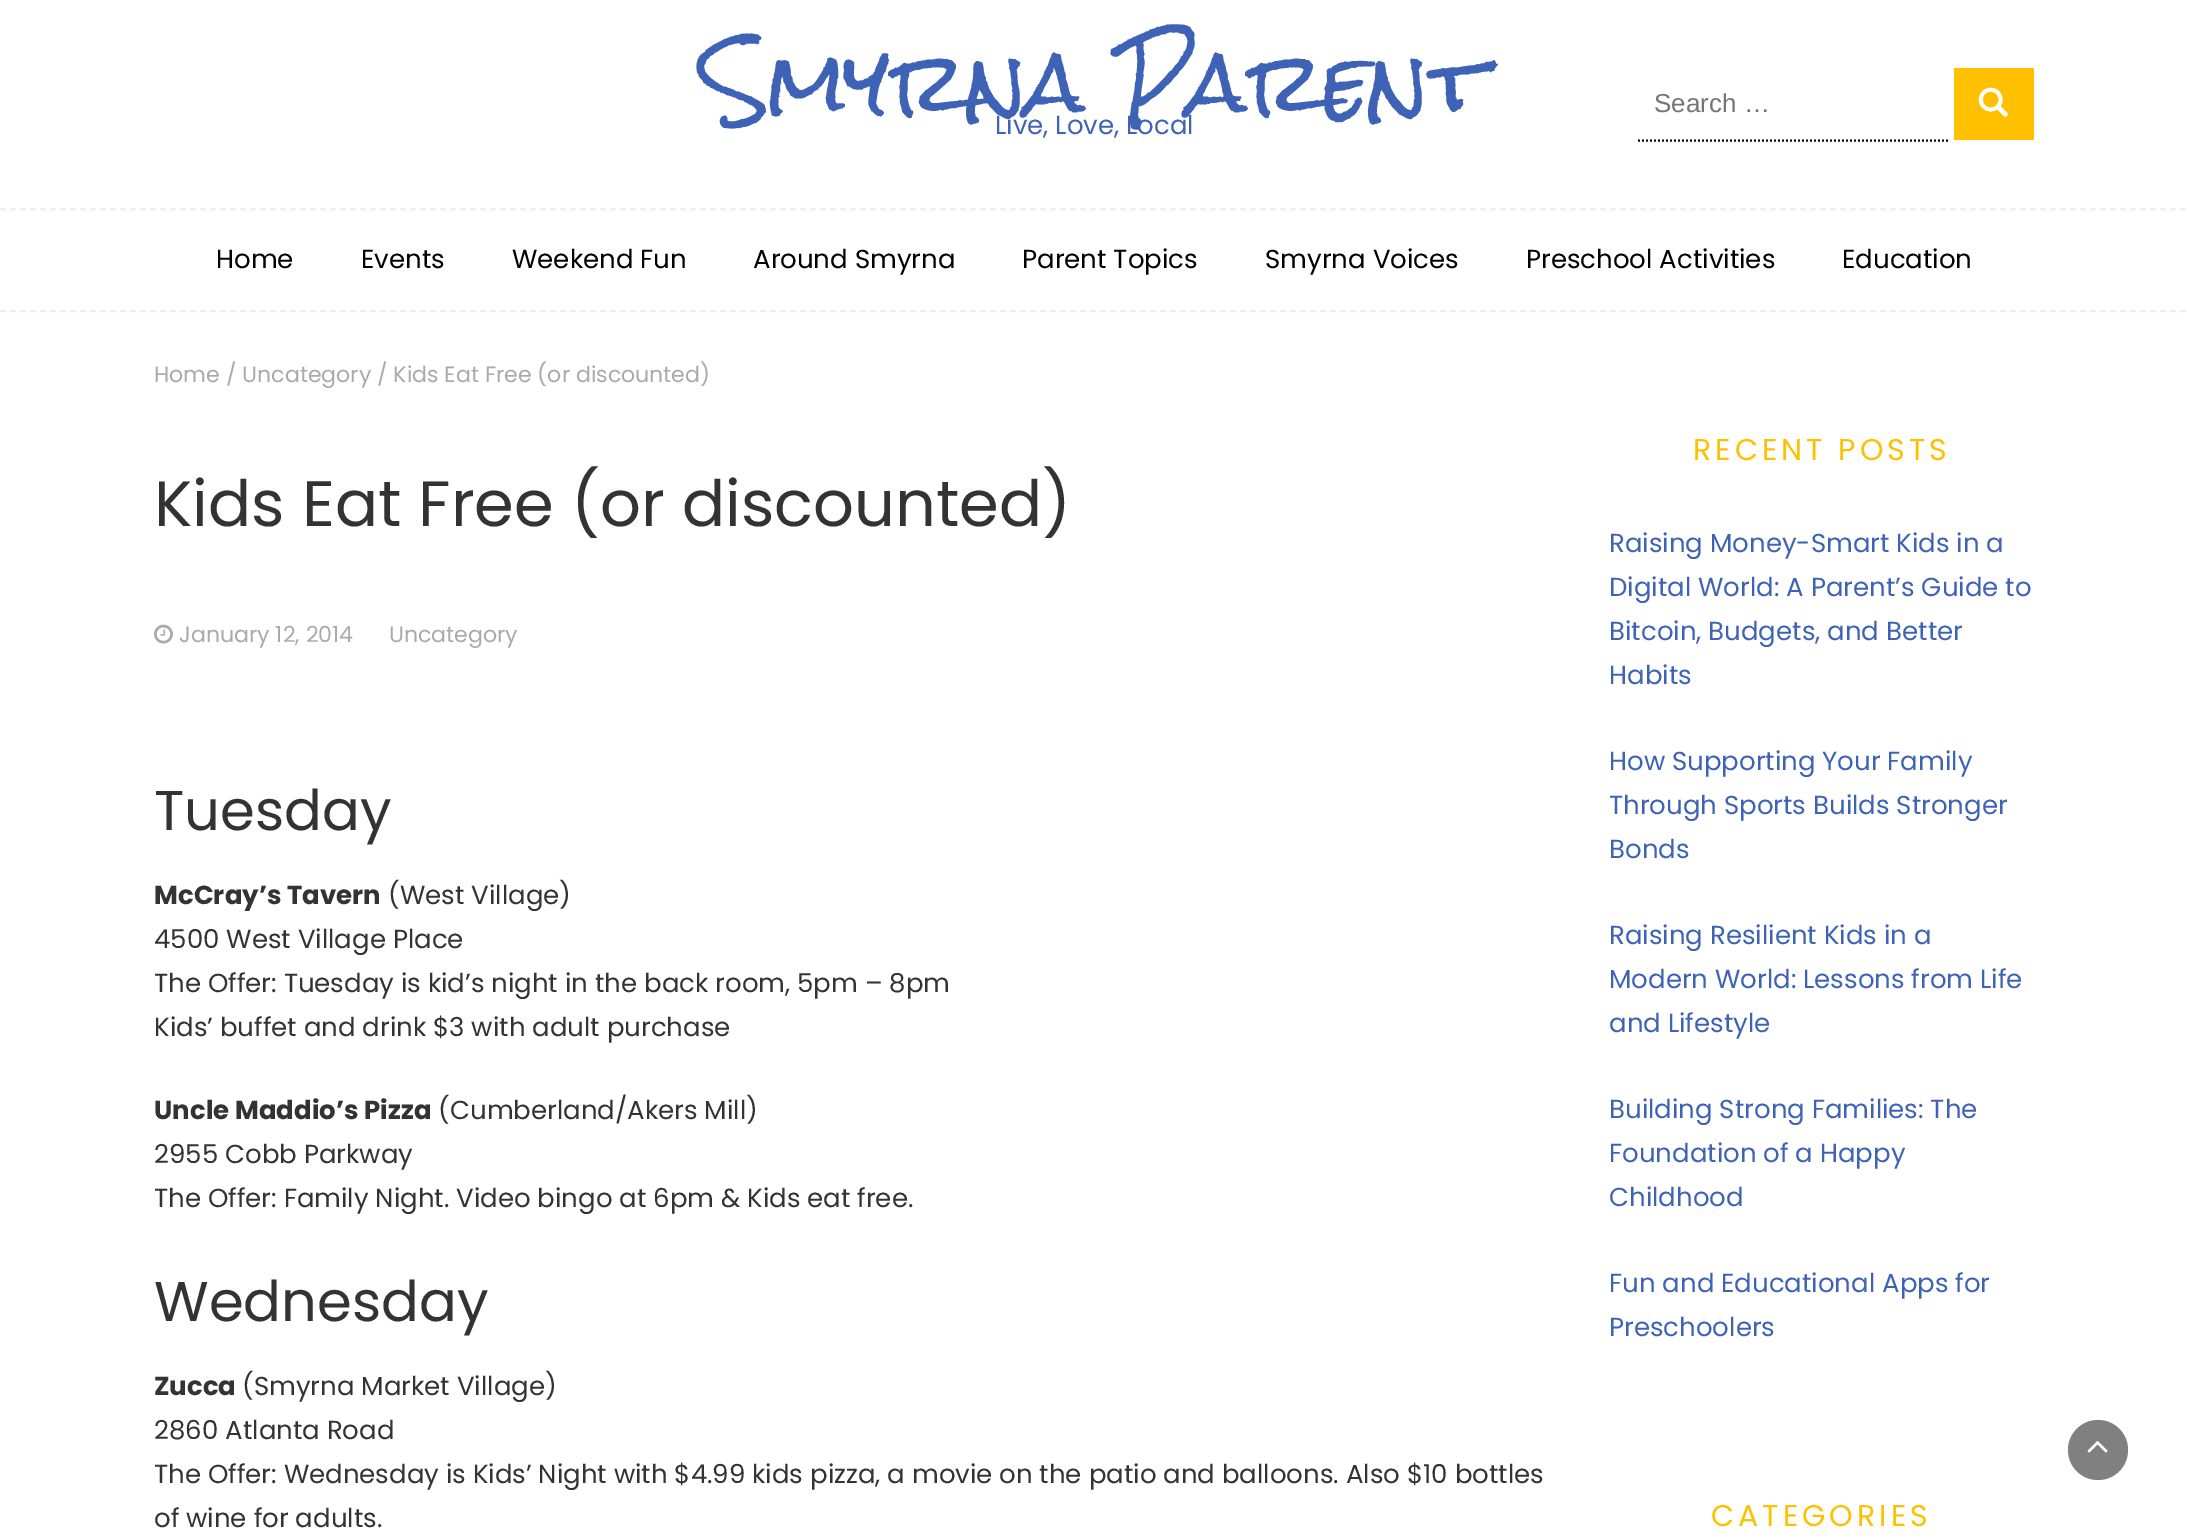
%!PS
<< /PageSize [2187 1539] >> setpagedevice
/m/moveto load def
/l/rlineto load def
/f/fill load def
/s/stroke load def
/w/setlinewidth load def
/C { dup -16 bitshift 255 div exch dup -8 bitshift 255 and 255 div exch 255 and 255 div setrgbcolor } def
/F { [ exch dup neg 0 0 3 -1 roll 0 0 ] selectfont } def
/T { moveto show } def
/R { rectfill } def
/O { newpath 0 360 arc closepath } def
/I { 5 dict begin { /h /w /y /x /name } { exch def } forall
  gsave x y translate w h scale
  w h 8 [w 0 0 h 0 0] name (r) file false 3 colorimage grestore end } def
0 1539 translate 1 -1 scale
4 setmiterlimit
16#FFFFFF C
0 0 2187 1539 R
/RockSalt-Regular 80 F
16#3E63B6 C
(Smyrna Parent) 702 114 T
/Poppins-Regular 26 F
(Live, Love, Local) 995 134 T
16#000000 C
2 w
[2 2] 0 setdash
1638 140.5 m 312 0 l s
/LiberationSans-Regular 26 F
16#757575 C
(Search …) 1654 112 T
16#FFC000 C
1954 68 80 72 R
(1.rgb) 1978 87 31 30 I
16#EEEEEE C
[6 4] 0 setdash
0 209 m 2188 0 l s
0 311 m 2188 0 l s
/Poppins-Regular 26 F
16#000000 C
(Home) 216 268 T
(Events) 361 268 T
(Weekend Fun) 512 268 T
(Around Smyrna) 753 268 T
(Parent Topics) 1022 268 T
(Smyrna Voices) 1265 268 T
(Preschool Activities) 1526 268 T
(Education) 1842 268 T
/Poppins-Regular 22.1 F
16#AAAAAA C
(Home / Uncategory / Kids Eat Free \(or discounted\)) 154 382 T
/Poppins-Regular 64 F
16#333333 C
(Kids Eat Free \(or discounted\)) 154 526 T
(2.rgb) 154 624 19 20 I
/Poppins-Regular 22.1 F
16#AAAAAA C
(January 12, 2014) 179 642 T
(Uncategory) 389 642 T
/Poppins-Regular 56 F
16#333333 C
(Tuesday) 154 830 T
/Poppins-Bold 26 F
(McCray’s Tavern) 154 904 T
/Poppins-Regular 26 F
(\(West Village\)) 388 904 T
(4500 West Village Place) 154 948 T
(The Offer: Tuesday is kid’s night in the back room, 5pm – 8pm) 154 992 T
(Kids’ buffet and drink $3 with adult purchase) 154 1036 T
/Poppins-Bold 26 F
(Uncle Maddio’s Pizza) 154 1119 T
/Poppins-Regular 26 F
(\(Cumberland/Akers Mill\)) 438 1119 T
(2955 Cobb Parkway) 154 1163 T
(The Offer: Family Night. Video bingo at 6pm & Kids eat free.) 154 1207 T
/Poppins-Regular 56 F
(Wednesday) 154 1321 T
/Poppins-Bold 26 F
(Zucca) 154 1395 T
/Poppins-Regular 26 F
(\(Smyrna Market Village\)) 242 1395 T
(2860 Atlanta Road) 154 1439 T
(The Offer: Wednesday is Kids’ Night with $4.99 kids pizza, a movie on the patio and balloons. Also $10 bottles) 154 1483 T
(of wine for adults.) 154 1527 T
/Poppins-Regular 30 F
16#FFC000 C
1693 460 m 4 0 (RECENT POSTS) ashow
/Poppins-Regular 26 F
16#3E63B6 C
(Raising Money-Smart Kids in a) 1609 552 T
(Digital World: A Parent’s Guide to) 1609 596 T
(Bitcoin, Budgets, and Better) 1609 640 T
(Habits) 1609 684 T
(How Supporting Your Family) 1609 770 T
(Through Sports Builds Stronger) 1609 814 T
(Bonds) 1609 858 T
(Raising Resilient Kids in a) 1609 944 T
(Modern World: Lessons from Life) 1609 988 T
(and Lifestyle) 1609 1032 T
(Building Strong Families: The) 1609 1118 T
(Foundation of a Happy) 1609 1162 T
(Childhood) 1609 1206 T
(Fun and Educational Apps for) 1609 1292 T
(Preschoolers) 1609 1336 T
/Poppins-Regular 30 F
16#FFC000 C
1711 1526 m 4 0 (CATEGORIES) ashow
16#808080 C
2098 1450 30 O f
(3.rgb) 2087 1441 21 12 I
showpage
